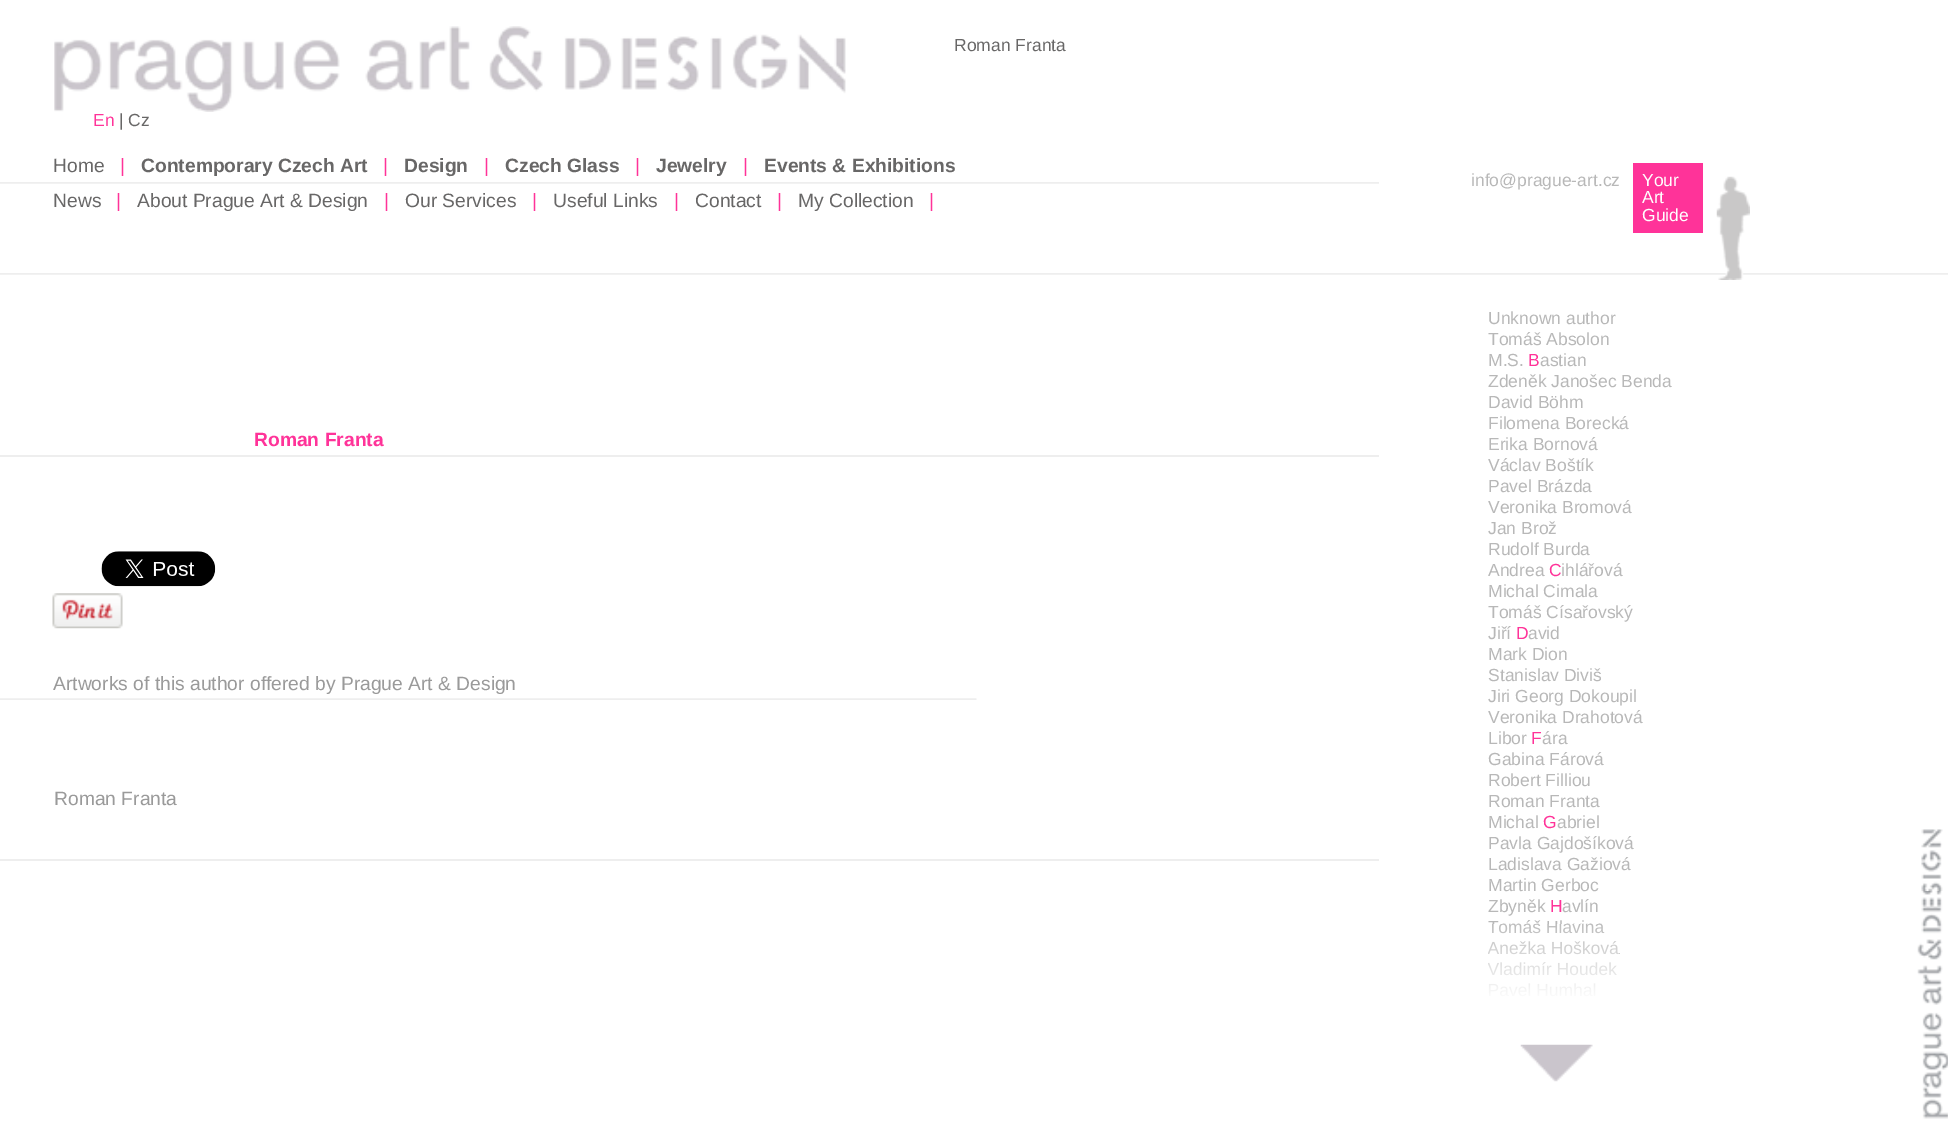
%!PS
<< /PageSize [1948 1123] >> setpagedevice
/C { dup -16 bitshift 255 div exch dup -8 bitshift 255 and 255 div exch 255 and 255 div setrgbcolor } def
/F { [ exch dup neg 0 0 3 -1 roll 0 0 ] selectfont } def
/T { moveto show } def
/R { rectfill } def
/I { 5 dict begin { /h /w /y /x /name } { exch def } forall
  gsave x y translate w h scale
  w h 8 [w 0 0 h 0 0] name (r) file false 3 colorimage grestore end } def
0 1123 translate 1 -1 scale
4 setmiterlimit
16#FFFFFF C
0 0 1948 1123 R
(1.rgb) 1917 829 31 290 I
(2.rgb) 1750 273 198 2 I
(3.rgb) 0 273 1750 2 I
(4.rgb) 1716 176 34 104 I
(5.rgb) 54 26 792 86 I
/LiberationSans-Regular 17.5 F
16#686767 C
(Roman Franta) 954 51 T
16#FF3399 C
(En) 93 126 T
16#686767 C
(| Cz) 119 126 T
(6.rgb) 0 182 1379 2 I
/LiberationSans-Regular 19.25 F
(Home) 53 172 T
16#FF3399 C
(|) 120 172 T
/LiberationSans-Bold 19.25 F
16#686767 C
(Contemporary Czech Art) 141 172 T
/LiberationSans-Regular 19.25 F
16#FF3399 C
(|) 383 172 T
/LiberationSans-Bold 19.25 F
16#686767 C
(Design) 404 172 T
/LiberationSans-Regular 19.25 F
16#FF3399 C
(|) 484 172 T
/LiberationSans-Bold 19.25 F
16#686767 C
(Czech Glass) 505 172 T
/LiberationSans-Regular 19.25 F
16#FF3399 C
(|) 635 172 T
/LiberationSans-Bold 19.25 F
16#686767 C
(Jewelry) 656 172 T
/LiberationSans-Regular 19.25 F
16#FF3399 C
(|) 743 172 T
/LiberationSans-Bold 19.25 F
16#686767 C
(Events & Exhibitions) 764 172 T
/LiberationSans-Regular 19.25 F
(News) 53 207 T
16#FF3399 C
(|) 116 207 T
16#686767 C
(About Prague Art & Design) 137 207 T
16#FF3399 C
(|) 384 207 T
16#686767 C
(Our Services) 405 207 T
16#FF3399 C
(|) 532 207 T
16#686767 C
(Useful Links) 553 207 T
16#FF3399 C
(|) 674 207 T
16#686767 C
(Contact) 695 207 T
16#FF3399 C
(|) 777 207 T
16#686767 C
(My Collection) 798 207 T
16#FF3399 C
(|) 929 207 T
/LiberationSans-Regular 17.5 F
16#B8B8B8 C
(info@prague-art.cz) 1471 186 T
16#FF3399 C
1633 163 70 70 R
16#FFFFFF C
(Your) 1642 186 T
(Art) 1642 203 T
(Guide) 1642 221 T
16#EEEEEE C
0 455 1379 2 R
/LiberationSans-Bold 19.25 F
16#FF3399 C
(Roman Franta) 254 446 T
(7.rgb) 101 551 115 36 I
(8.rgb) 52 593 71 36 I
(9.rgb) 0 698 977 2 I
/LiberationSans-Regular 19.25 F
16#9A9A9A C
(Artworks of this author offered by Prague Art & Design) 53 690 T
(Roman Franta) 54 805 T
16#EEEEEE C
0 859 1379 2 R
/LiberationSans-Regular 17.5 F
16#B8B8B8 C
(Unknown author) 1488 324 T
(Tomáš Absolon) 1488 345 T
(M.S.) 1488 366 T
16#FF3399 C
(B) 1528 366 T
16#B8B8B8 C
(astian) 1540 366 T
(Zdeněk Janošec Benda) 1488 387 T
(David Böhm) 1488 408 T
(Filomena Borecká) 1488 429 T
(Erika Bornová) 1488 450 T
(Václav Boštík) 1488 471 T
(Pavel Brázda) 1488 492 T
(Veronika Bromová) 1488 513 T
(Jan Brož) 1488 534 T
(Rudolf Burda) 1488 555 T
(Andrea) 1488 576 T
16#FF3399 C
(C) 1549 576 T
16#B8B8B8 C
(ihlářová) 1561 576 T
(Michal Cimala) 1488 597 T
(Tomáš Císařovský) 1488 618 T
(Jiří) 1488 639 T
16#FF3399 C
(D) 1516 639 T
16#B8B8B8 C
(avid) 1528 639 T
(Mark Dion) 1488 660 T
(Stanislav Diviš) 1488 681 T
(Jiri Georg Dokoupil) 1488 702 T
(Veronika Drahotová) 1488 723 T
(Libor) 1488 744 T
16#FF3399 C
(F) 1531 744 T
16#B8B8B8 C
(ára) 1542 744 T
(Gabina Fárová) 1488 765 T
(Robert Filliou) 1488 786 T
(Roman Franta) 1488 807 T
(Michal) 1488 828 T
16#FF3399 C
(G) 1543 828 T
16#B8B8B8 C
(abriel) 1557 828 T
(Pavla Gajdošíková) 1488 849 T
(Ladislava Gažiová) 1488 870 T
(Martin Gerboc) 1488 891 T
(Zbyněk) 1488 912 T
16#FF3399 C
(H) 1550 912 T
16#B8B8B8 C
(avlín) 1562 912 T
(Tomáš Hlavina) 1488 933 T
(Anežka Hošková) 1488 954 T
(Vladimír Houdek) 1488 975 T
(10.rgb) 1488 924 131 118 I
(11.rgb) 1520 1044 73 38 I
showpage
